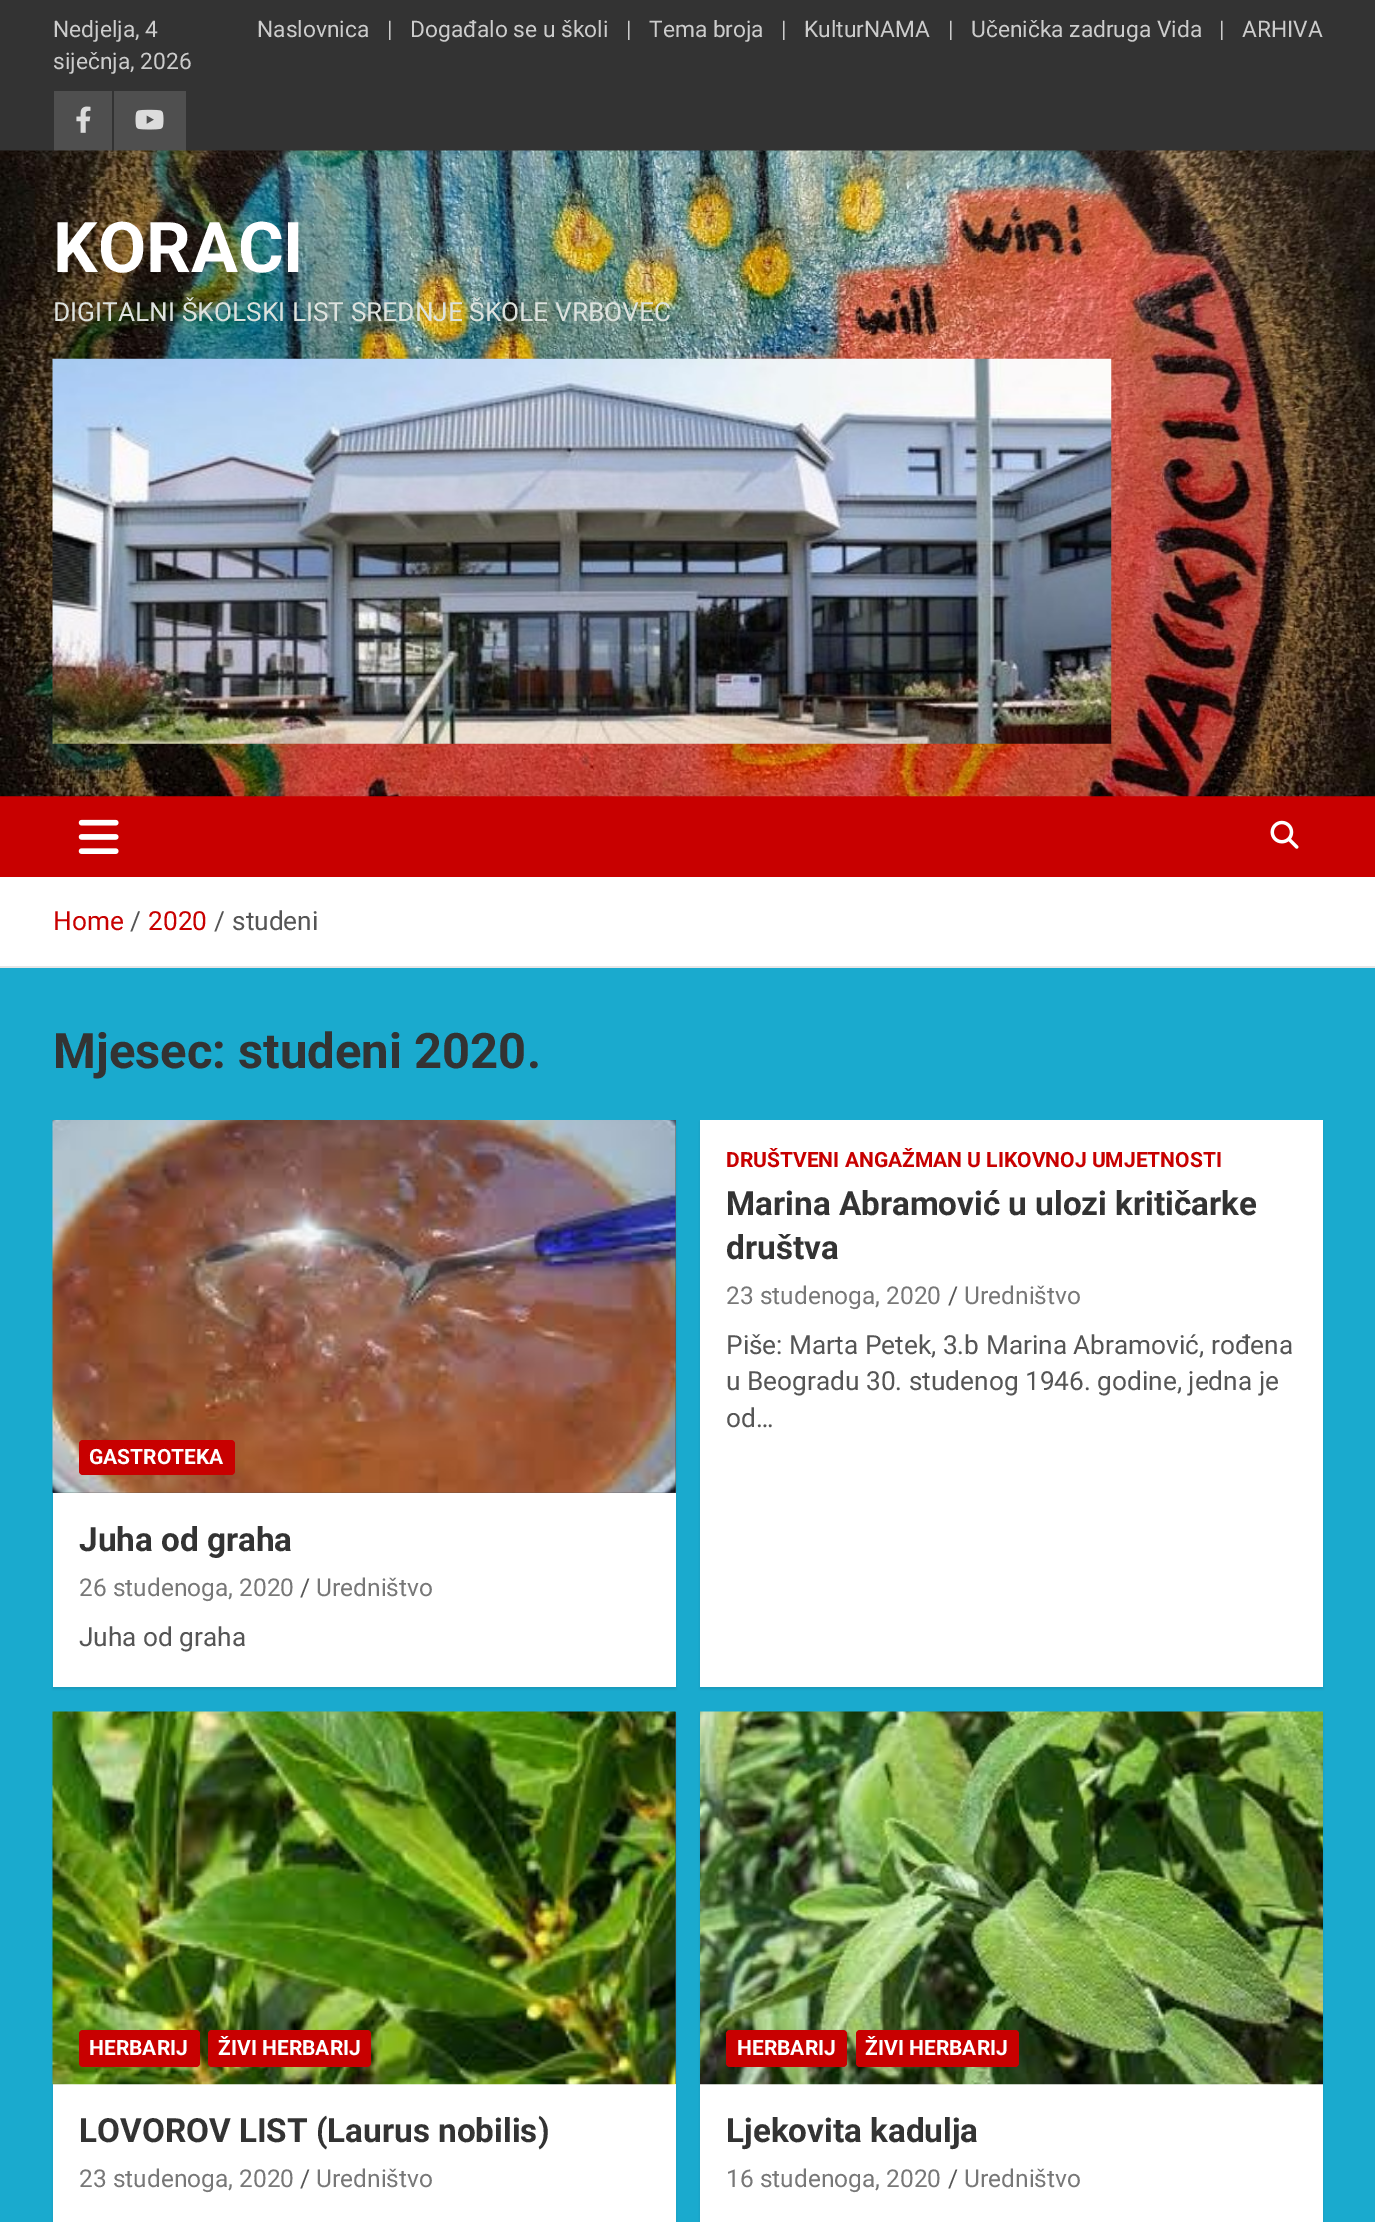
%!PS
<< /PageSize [1375 2222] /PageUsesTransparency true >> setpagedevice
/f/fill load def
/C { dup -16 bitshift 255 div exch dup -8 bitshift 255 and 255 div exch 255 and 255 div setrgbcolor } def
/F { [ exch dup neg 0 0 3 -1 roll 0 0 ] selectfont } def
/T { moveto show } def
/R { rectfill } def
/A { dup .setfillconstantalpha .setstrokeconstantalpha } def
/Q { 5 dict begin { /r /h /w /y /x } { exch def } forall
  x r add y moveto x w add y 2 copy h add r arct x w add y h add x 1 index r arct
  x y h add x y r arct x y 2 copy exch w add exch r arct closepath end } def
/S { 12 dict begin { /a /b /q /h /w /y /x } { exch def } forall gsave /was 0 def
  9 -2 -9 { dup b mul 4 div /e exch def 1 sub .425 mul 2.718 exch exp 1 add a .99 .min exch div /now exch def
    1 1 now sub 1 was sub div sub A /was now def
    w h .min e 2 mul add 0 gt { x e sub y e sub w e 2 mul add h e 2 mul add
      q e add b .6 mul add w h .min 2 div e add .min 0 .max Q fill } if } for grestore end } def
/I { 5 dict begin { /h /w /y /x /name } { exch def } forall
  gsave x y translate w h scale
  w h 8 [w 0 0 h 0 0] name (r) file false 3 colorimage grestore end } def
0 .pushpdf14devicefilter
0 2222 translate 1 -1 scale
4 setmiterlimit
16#1AAACE C
0 0 1375 2222 R
16#333333 C
0 0 1375 151 R
/Roboto-Regular 22.75 F
16#CCCCCC C
(Nedjelja, 4) 53 37 T
(siječnja, 2026) 53 69 T
(Naslovnica) 257 37 T
(|) 387 37 T
(Događalo se u školi) 410 37 T
(|) 626 37 T
(Tema broja) 649 37 T
(|) 781 37 T
(KulturNAMA) 804 37 T
(|) 948 37 T
(Učenička zadruga Vida) 971 37 T
(|) 1219 37 T
(ARHIVA) 1242 37 T
16#4F4F4F C
54 91 58 60 R
(1.rgb) 76 106 15 27 I
114 91 72 60 R
(2.rgb) 135 109 29 21 I
16#C80000 C
0 796 1375 81 R
(3.rgb) 0 150 1375 647 I
/Roboto-Bold 70 F
16#FFFFFF C
(KORACI) 53 272 T
/Roboto-Regular 26.25 F
16#DDE2DE C
(DIGITALNI ŠKOLSKI LIST SREDNJE ŠKOLE VRBOVEC) 53 321 T
(4.rgb) 52 358 1060 386 I
(5.rgb) 78 819 41 35 I
(6.rgb) 1270 820 29 29 I
16#FFFFFF C
0 877 1375 89 R
16#E6E6E6 C
0 966 1375 2 R
16#C80000 C
(Home) 53 930 T
16#555555 C
(/) 130 930 T
16#C80000 C
(2020) 148 930 T
16#555555 C
(/) 214 930 T
(studeni) 232 930 T
/Roboto-Bold 49 F
16#333333 C
(Mjesec: studeni 2020.) 53 1068 T
16#000000 C
700 1122 623 567 0 1 .1 S
16#FFFFFF C
700 1120 623 567 R
/Roboto-Bold 21 F
16#C80000 C
(DRUŠTVENI ANGAŽMAN U LIKOVNOJ UMJETNOSTI) 726 1167 T
/Roboto-Bold 33.25 F
16#333333 C
(Marina Abramović u ulozi kritičarke) 726 1215 T
(društva) 726 1259 T
/Roboto-Regular 24.5 F
16#777777 C
(23 studenoga, 2020) 726 1304 T
16#555555 C
(/) 948 1304 T
16#777777 C
(Uredništvo) 964 1304 T
/Roboto-Regular 26.25 F
16#555555 C
(Piše: Marta Petek, 3.b Marina Abramović, rođena) 726 1354 T
(u Beogradu 30. studenog 1946. godine, jedna je) 726 1390 T
(od…) 726 1427 T
16#000000 C
53 1122 623 567 0 1 .1 S
16#FFFFFF C
53 1493 623 194 R
16#555555 C
53 1120 623 373 R
(7.rgb) 52 1120 624 373 I
16#C80000 C
79 1440 156 35 4 Q f
/Roboto-Bold 21 F
16#FFFFFF C
(GASTROTEKA) 89 1464 T
/Roboto-Bold 33.25 F
16#333333 C
(Juha od graha) 79 1551 T
/Roboto-Regular 24.5 F
16#777777 C
(26 studenoga, 2020) 79 1596 T
16#555555 C
(/) 300 1596 T
16#777777 C
(Uredništvo) 316 1596 T
/Roboto-Regular 26.25 F
16#555555 C
(Juha od graha) 79 1646 T
16#000000 C
53 1713 623 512 0 1 .1 S
16#FFFFFF C
53 2084 623 138 R
16#555555 C
675 1712 1 372 R
(8.rgb) 52 1711 624 374 I
16#C80000 C
79 2030 121 37 4 Q f
/Roboto-Bold 21 F
16#FFFFFF C
(HERBARIJ) 89 2055 T
16#C80000 C
208 2030 163 37 4 Q f
16#FFFFFF C
(ŽIVI HERBARIJ) 218 2055 T
/Roboto-Bold 33.25 F
16#333333 C
(LOVOROV LIST \(Laurus nobilis\)) 79 2142 T
/Roboto-Regular 24.5 F
16#777777 C
(23 studenoga, 2020) 79 2187 T
16#555555 C
(/) 300 2187 T
16#777777 C
(Uredništvo) 316 2187 T
16#000000 C
700 1713 623 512 0 1 .1 S
16#FFFFFF C
700 2084 623 138 R
(9.rgb) 700 1711 623 374 I
16#C80000 C
726 2030 121 37 4 Q f
/Roboto-Bold 21 F
16#FFFFFF C
(HERBARIJ) 737 2055 T
16#C80000 C
856 2030 163 37 4 Q f
16#FFFFFF C
(ŽIVI HERBARIJ) 865 2055 T
/Roboto-Bold 33.25 F
16#333333 C
(Ljekovita kadulja) 726 2142 T
/Roboto-Regular 24.5 F
16#777777 C
(16 studenoga, 2020) 726 2187 T
16#555555 C
(/) 948 2187 T
16#777777 C
(Uredništvo) 964 2187 T
.poppdf14devicefilter showpage
